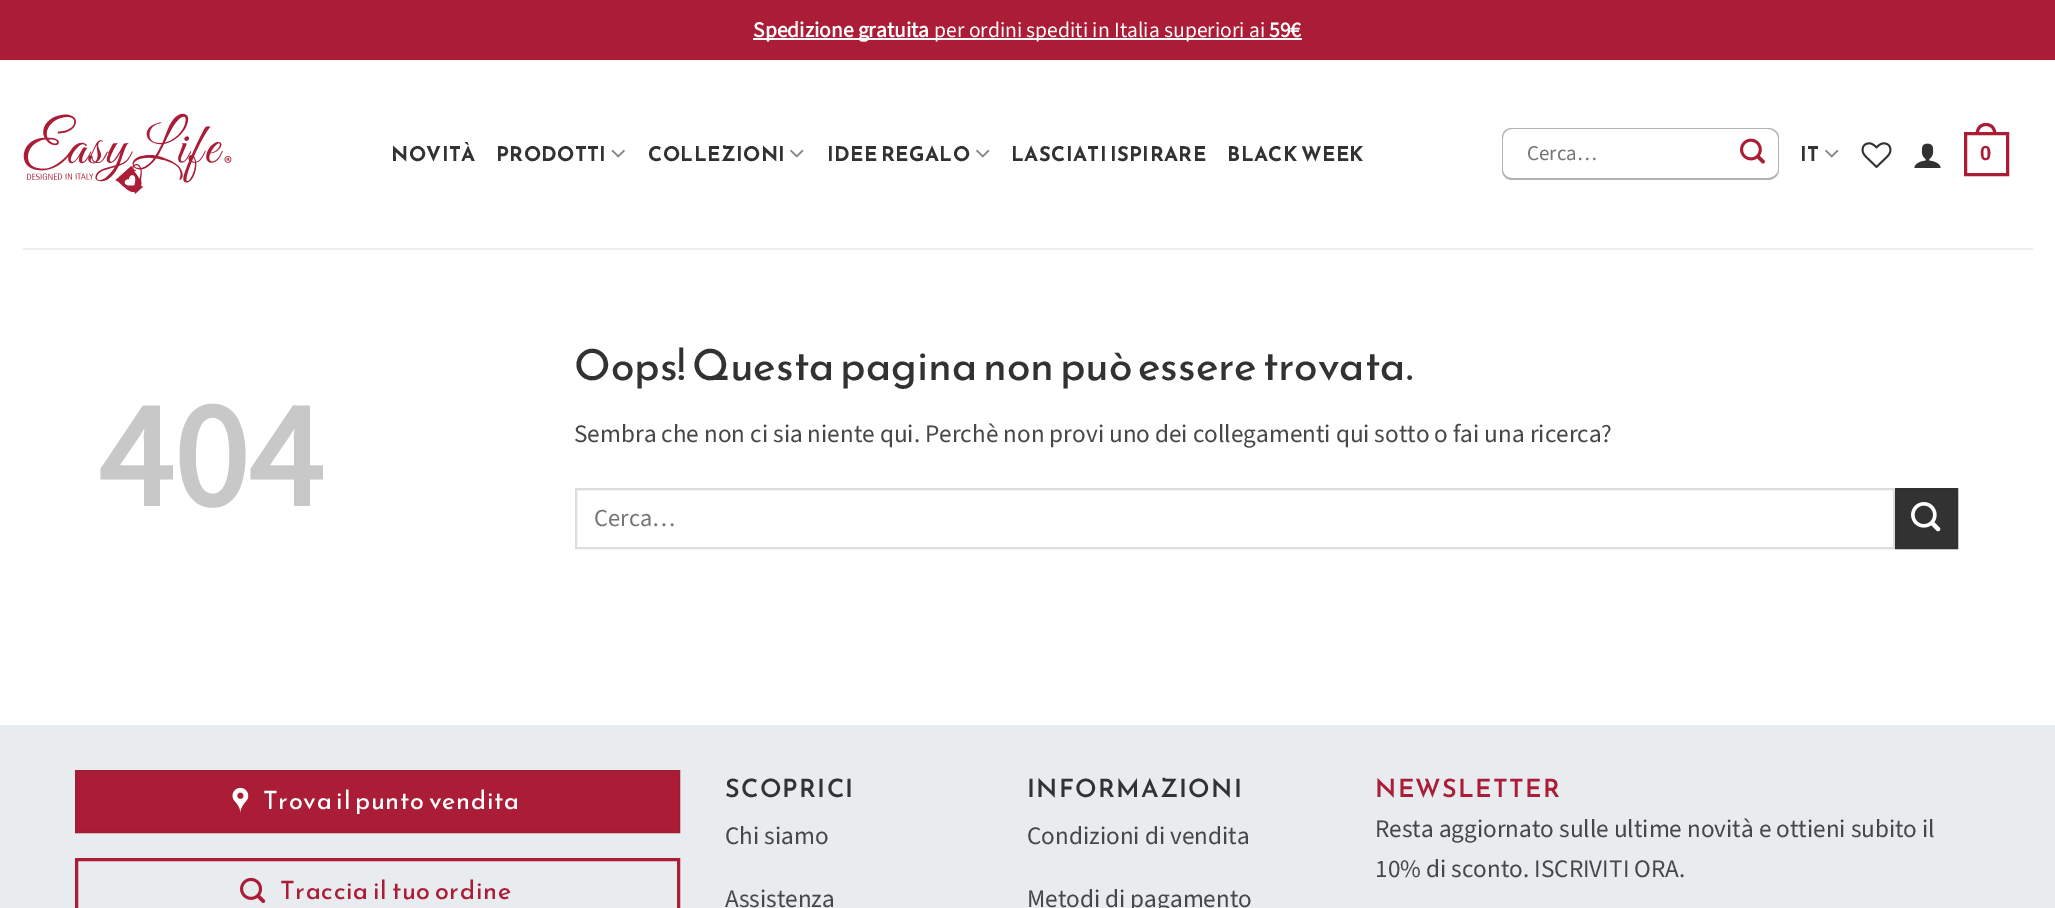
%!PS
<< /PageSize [2055 908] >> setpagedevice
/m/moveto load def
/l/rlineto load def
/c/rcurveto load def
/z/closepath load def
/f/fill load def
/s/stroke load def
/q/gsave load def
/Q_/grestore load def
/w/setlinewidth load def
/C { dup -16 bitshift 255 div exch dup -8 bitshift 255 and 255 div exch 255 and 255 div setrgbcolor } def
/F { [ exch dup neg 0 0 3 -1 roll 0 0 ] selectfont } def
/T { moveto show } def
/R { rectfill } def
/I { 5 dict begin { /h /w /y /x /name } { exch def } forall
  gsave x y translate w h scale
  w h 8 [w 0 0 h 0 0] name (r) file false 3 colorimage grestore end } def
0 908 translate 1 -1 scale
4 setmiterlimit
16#FFFFFF C
0 0 2055 908 R
16#AB1D37 C
0 0 2055 60 R
16#FFFFFF C
753 38 549 2 R
/SourceSans3-Bold 21.6 F
(Spedizione gratuita) 753 37 T
/SourceSans3-ExtraLight 21.6 F
(per ordini spediti in Italia superiori ai) 934 37 T
/SourceSans3-Bold 21.6 F
(59€) 1269 37 T
(1.rgb) 23 113 209 81 I
/ReemKufi-Bold 20.25 F
16#323232 C
391 161 m .4 0 (NOVITÀ) ashow
496 161 m .4 0 (PRODOTTI) ashow
(2.rgb) 611 149 14 9 I
648 161 m .4 0 (COLLEZIONI) ashow
(3.rgb) 790 149 14 9 I
827 161 m .4 0 (IDEE REGALO) ashow
(3.rgb) 976 149 14 9 I
1011 161 m .4 0 (LASCIATI ISPIRARE) ashow
1227 161 m .4 0 (BLACK WEEK) ashow
16#B3B3B3 C
1512 128 m 214 0 l 0 52 l -214 0 l -6 0 -10 -5 -10 -10 c 0 -32 l 0 -6 4 -10 10 -10 c z 1512 129 m 214 0 l 0 49 l -214 0 l -5 0 -9 -4 -9 -8 c 0 -32 l 0 -5 4 -9 9 -9 c z eofill
/SourceSans3-ExtraLight 21 F
16#757575 C
(Cerca…) 1527 160 T
16#B3B3B3 C
1726 128 m 42 0 l 6 0 11 4 11 10 c 0 32 l 0 5 -5 10 -11 10 c -42 0 l z 1726 129 m 42 0 l 5 0 10 4 10 9 c 0 32 l 0 4 -5 8 -10 8 c -42 0 l z eofill
(4.rgb) 1740 138 25 26 I
/ReemKufi-Bold 20.25 F
16#323232 C
1800 161 m .4 0 (IT) ashow
(3.rgb) 1825 149 14 9 I
(5.rgb) 1861 142 31 26 I
(6.rgb) 1914 143 27 25 I
16#AB1D37 C
3 w
1965.5 133.5 42 41 rectstroke
1986 123 m 7 0 10.5 5.5 10.5 12 c -21 0 l 0 -6.5 3.5 -12 10.5 -12 c z 1986 126 m 5.5 0 7.5 4.5 7.5 9 c -15 0 l 0 -4.5 2 -9 7.5 -9 c z eofill
/LiberationSans-Bold 20.25 F
1980 160 m .4 0 (0) ashow
16#EDEDED C
23 248 2010 2 R
/SourceSans3-Bold 151 F
16#C8C8C8 C
(404) 98 506 T
/ReemKufi-Regular 42.8 F
16#323232 C
(Oops! Questa pagina non può essere trovata.) 574 380 T
/SourceSans3-ExtraLight 25.2 F
16#474747 C
(Sembra che non ci sia niente qui. Perchè non provi uno dei collegamenti qui sotto o fai una ricerca?) 574 442 T
16#DDDDDD C
2 w
576 489 1318 59 rectstroke
/SourceSans3-ExtraLight 24.5 F
16#757575 C
(Cerca…) 594 526 T
16#323232 C
1896 489 m 61 0 l 0 59 l -61 0 l z q f Q_
16#303030 C
s
(7.rgb) 1911 502 30 30 I
16#E9ECEF C
0 725 2055 183 R
16#AB1D37 C
76 771 m 603 0 l 0 61 l -603 0 l z q f Q_
16#A21C34 C
s
(8.rgb) 232 787 17 26 I
/ReemKufi-Regular 25.2 F
16#FFFFFF C
263 809 m .75 0 (Trova il punto vendita) ashow
16#AB1D37 C
3 w
76.5 859.5 602 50 rectstroke
(9.rgb) 240 877 26 27 I
280 899 m .75 0 (Traccia il tuo ordine) ashow
/ReemKufi-Medium 25.2 F
16#323232 C
725 797 m 1.25 0 (SCOPRICI) ashow
/SourceSans3-ExtraLight 25.2 F
16#474747 C
(Chi siamo) 725 844 T
(Assistenza) 725 907 T
/ReemKufi-Medium 25.2 F
16#323232 C
1027 797 m 1.25 0 (INFORMAZIONI) ashow
/SourceSans3-ExtraLight 25.2 F
16#474747 C
(Condizioni di vendita) 1027 844 T
(Metodi di pagamento) 1027 907 T
/ReemKufi-Medium 25.2 F
16#AB1D37 C
1375 797 m 1.25 0 (NEWSLETTER) ashow
/SourceSans3-ExtraLight 25.2 F
16#474747 C
(Resta aggiornato sulle ultime novità e ottieni subito il) 1375 837 T
(10% di sconto. ISCRIVITI ORA.) 1375 877 T
showpage
